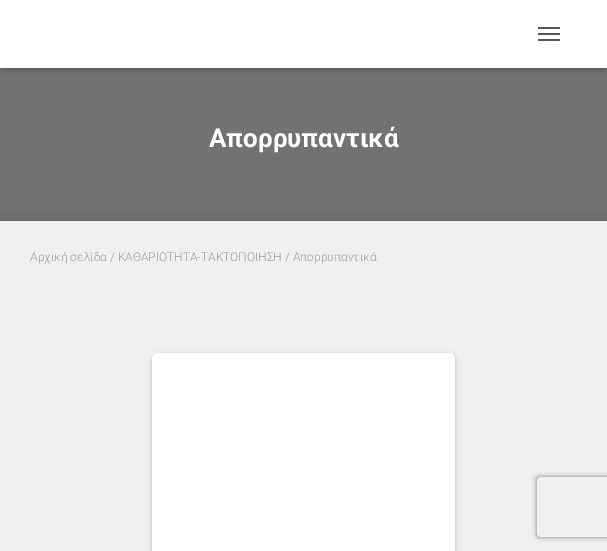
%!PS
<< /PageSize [607 551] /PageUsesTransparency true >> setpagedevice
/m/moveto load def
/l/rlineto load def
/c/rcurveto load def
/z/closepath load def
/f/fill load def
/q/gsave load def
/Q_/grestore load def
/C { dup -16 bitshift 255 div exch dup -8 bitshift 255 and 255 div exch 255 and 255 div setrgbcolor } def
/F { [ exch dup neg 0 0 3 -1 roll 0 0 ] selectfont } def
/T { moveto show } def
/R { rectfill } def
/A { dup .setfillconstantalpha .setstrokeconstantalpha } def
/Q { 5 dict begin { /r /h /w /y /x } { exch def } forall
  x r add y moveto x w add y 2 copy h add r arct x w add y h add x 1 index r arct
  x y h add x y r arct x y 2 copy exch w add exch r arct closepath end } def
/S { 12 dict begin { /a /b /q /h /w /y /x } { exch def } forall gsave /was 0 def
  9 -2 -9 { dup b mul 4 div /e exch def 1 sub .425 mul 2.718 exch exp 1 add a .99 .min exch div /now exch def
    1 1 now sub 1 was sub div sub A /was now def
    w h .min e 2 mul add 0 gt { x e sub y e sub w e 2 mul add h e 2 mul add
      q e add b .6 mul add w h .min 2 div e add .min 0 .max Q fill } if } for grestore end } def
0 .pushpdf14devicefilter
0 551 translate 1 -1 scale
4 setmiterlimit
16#727272 C
0 0 607 551 R
16#000000 C
2 6 603 64 0 2.5 .1 S
0 1 607 68 0 5 .12 S
6 7 595 56 0 5 .42 S
16#FFFFFF C
0 0 607 68 R
16#555555 C
538 27 22 2 1 Q f
538 33 22 2 1 Q f
538 39 22 2 1 Q f
/Roboto-Bold 26 F
16#FFFFFF C
(Απορρυπαντικά) 209 147 T
16#000000 C
-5 222 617 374 0 15 .12 S
16#F0F0F0 C
0 221 607 330 R
/Roboto-Light 12 F
16#999999 C
(Αρχική σελίδα / ΚΑΘΑΡΙΟΤΗΤΑ-ΤΑΚΤΟΠΟΙΗΣΗ / Απορρυπαντικά) 30 261 T
16#000000 C
152 354 303 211 6 2.5 .12 S
152 355 303 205 6 1 .14 S
16#FFFFFF C
152 353 303 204 6 Q f
q
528 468 m 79 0 l 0 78 l -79 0 l z 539 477 m 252 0 l 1 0 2 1 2 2 c 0 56 l 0 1 -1 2 -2 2 c -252 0 l -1 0 -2 -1 -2 -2 c 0 -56 l 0 -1 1 -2 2 -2 c z eoclip newpath
16#808080 C
537 477 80 60 2 2.5 1 S
Q_
.poppdf14devicefilter showpage
